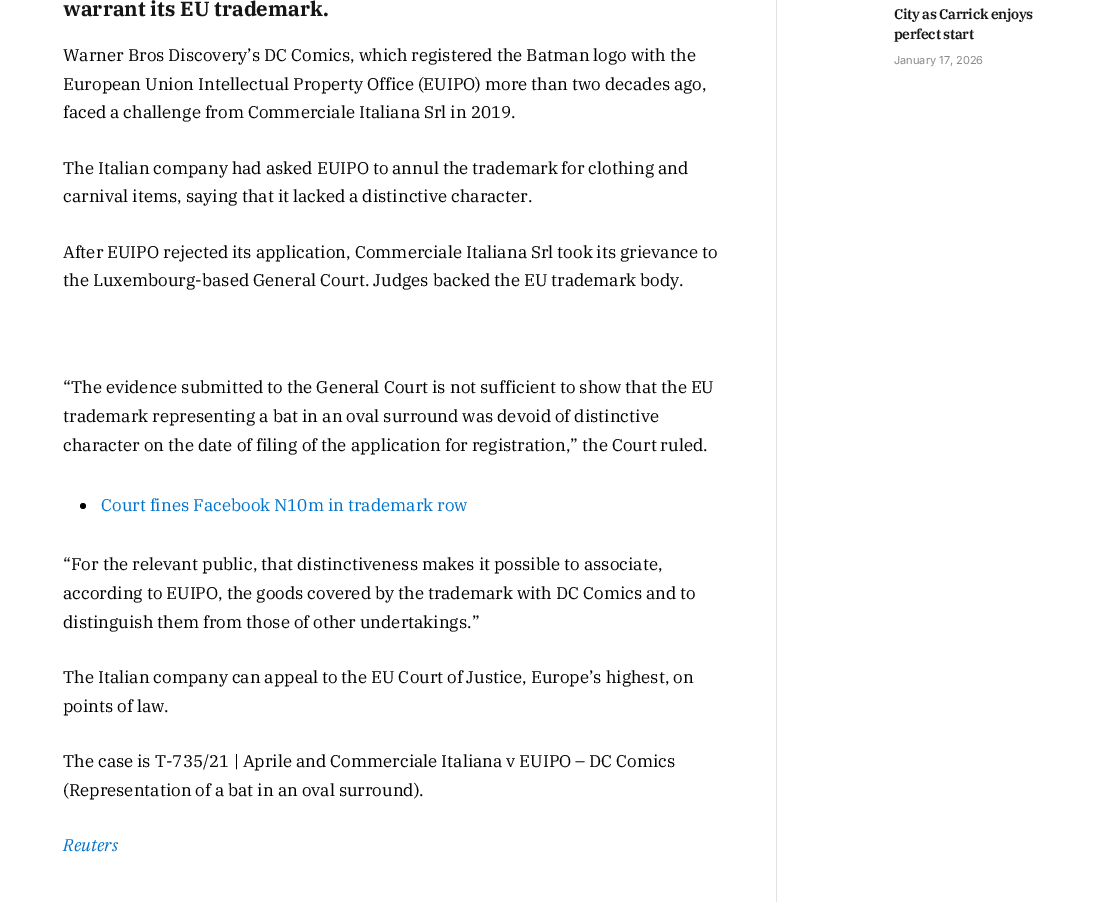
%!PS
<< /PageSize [1115 902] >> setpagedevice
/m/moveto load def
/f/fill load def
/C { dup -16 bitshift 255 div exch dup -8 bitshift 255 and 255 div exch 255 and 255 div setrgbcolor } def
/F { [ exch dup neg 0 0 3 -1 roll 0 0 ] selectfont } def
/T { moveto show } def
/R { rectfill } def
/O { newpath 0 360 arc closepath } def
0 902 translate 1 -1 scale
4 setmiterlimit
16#FFFFFF C
0 0 1115 902 R
/IBMPlexSerif-Bold 20.5 F
16#161616 C
(warrant its EU trademark.) 63 16 T
/IBMPlexSerif-Regular 17 F
16#000000 C
(Warner Bros Discovery’s DC Comics, which registered the Batman logo with the) 63 61 T
(European Union Intellectual Property Office \(EUIPO\) more than two decades ago,) 63 90 T
(faced a challenge from Commerciale Italiana Srl in 2019.) 63 118 T
(The Italian company had asked EUIPO to annul the trademark for clothing and) 63 174 T
(carnival items, saying that it lacked a distinctive character.) 63 202 T
(After EUIPO rejected its application, Commerciale Italiana Srl took its grievance to) 63 258 T
(the Luxembourg-based General Court. Judges backed the EU trademark body.) 63 286 T
(“The evidence submitted to the General Court is not sufficient to show that the EU) 63 393 T
(trademark representing a bat in an oval surround was devoid of distinctive) 63 422 T
(character on the date of filing of the application for registration,” the Court ruled.) 63 451 T
83 506 3 O f
16#0073CC C
(Court fines Facebook N10m in trademark row) 101 511 T
16#000000 C
(“For the relevant public, that distinctiveness makes it possible to associate,) 63 570 T
(according to EUIPO, the goods covered by the trademark with DC Comics and to) 63 599 T
(distinguish them from those of other undertakings.”) 63 628 T
(The Italian company can appeal to the EU Court of Justice, Europe’s highest, on) 63 683 T
(points of law.) 63 712 T
(The case is T-735/21 | Aprile and Commerciale Italiana v EUIPO – DC Comics) 63 767 T
(\(Representation of a bat in an oval surround\).) 63 796 T
/IBMPlexSerif-Italic 17 F
16#0073CC C
(Reuters) 63 851 T
16#E2E2E2 C
776 0 1 902 R
/IBMPlexSerif-SemiBold 14 F
16#161616 C
894 19 m -.35 0 (City as Carrick enjoys) ashow
894 39 m -.35 0 (perfect start) ashow
/Inter-Regular 11 F
16#8A8A8A C
(January 17, 2026) 894 64 T
showpage
